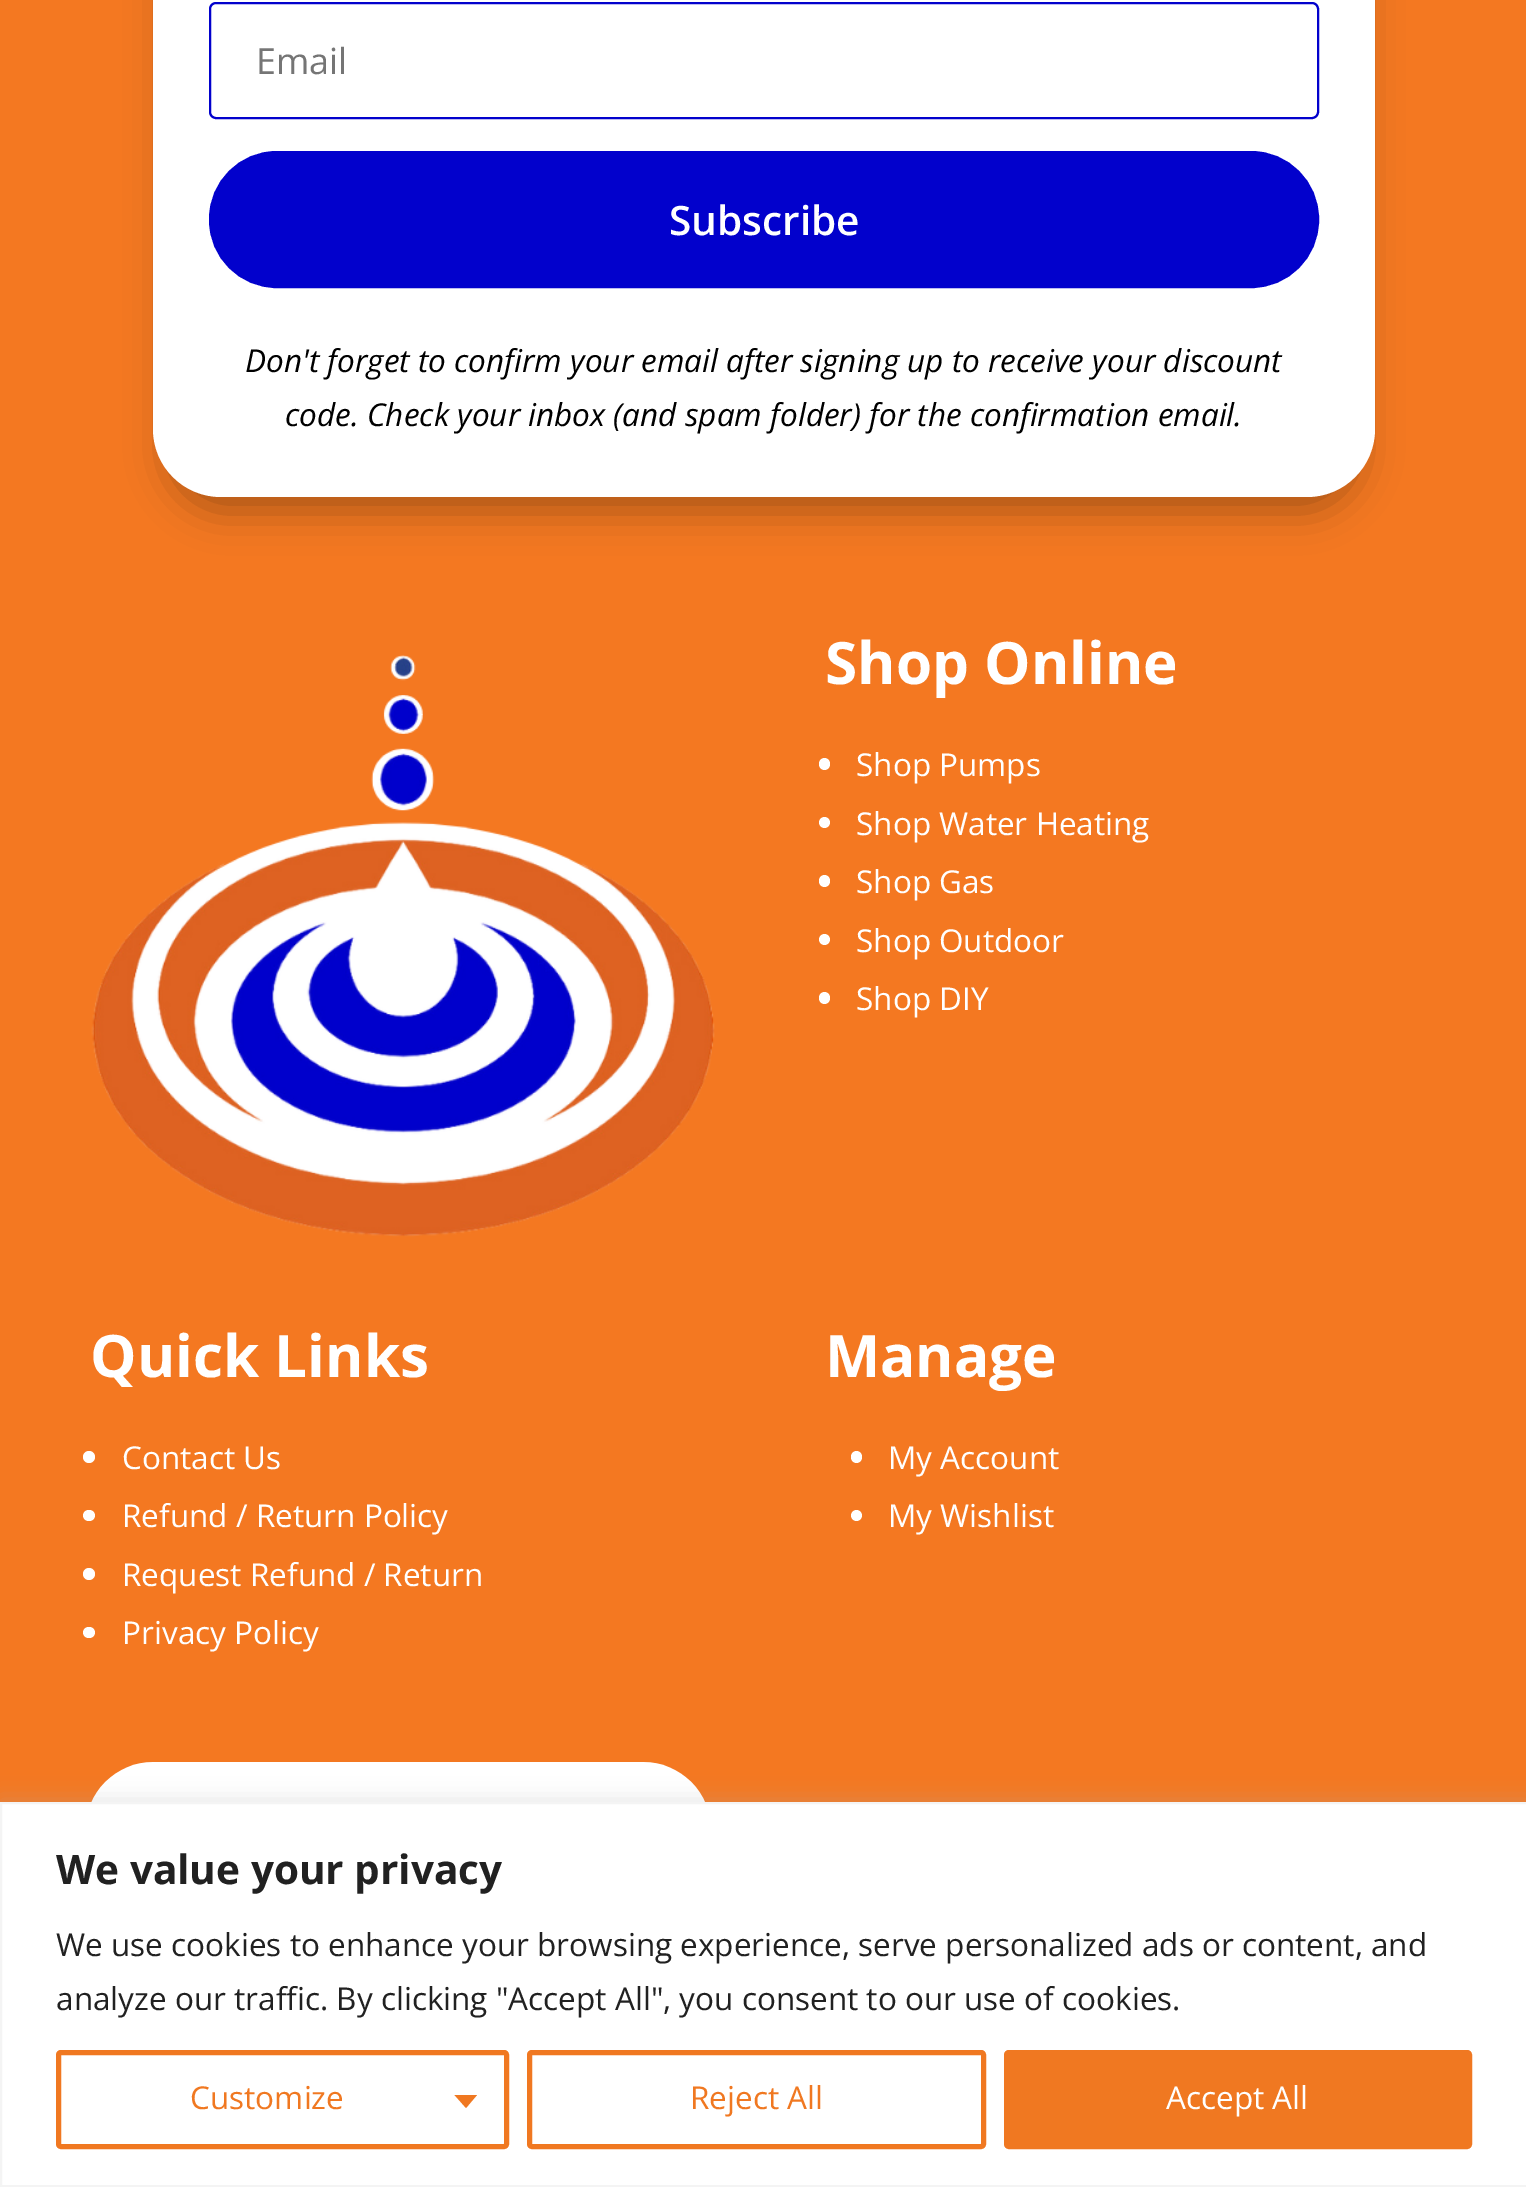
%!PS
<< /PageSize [1526 2187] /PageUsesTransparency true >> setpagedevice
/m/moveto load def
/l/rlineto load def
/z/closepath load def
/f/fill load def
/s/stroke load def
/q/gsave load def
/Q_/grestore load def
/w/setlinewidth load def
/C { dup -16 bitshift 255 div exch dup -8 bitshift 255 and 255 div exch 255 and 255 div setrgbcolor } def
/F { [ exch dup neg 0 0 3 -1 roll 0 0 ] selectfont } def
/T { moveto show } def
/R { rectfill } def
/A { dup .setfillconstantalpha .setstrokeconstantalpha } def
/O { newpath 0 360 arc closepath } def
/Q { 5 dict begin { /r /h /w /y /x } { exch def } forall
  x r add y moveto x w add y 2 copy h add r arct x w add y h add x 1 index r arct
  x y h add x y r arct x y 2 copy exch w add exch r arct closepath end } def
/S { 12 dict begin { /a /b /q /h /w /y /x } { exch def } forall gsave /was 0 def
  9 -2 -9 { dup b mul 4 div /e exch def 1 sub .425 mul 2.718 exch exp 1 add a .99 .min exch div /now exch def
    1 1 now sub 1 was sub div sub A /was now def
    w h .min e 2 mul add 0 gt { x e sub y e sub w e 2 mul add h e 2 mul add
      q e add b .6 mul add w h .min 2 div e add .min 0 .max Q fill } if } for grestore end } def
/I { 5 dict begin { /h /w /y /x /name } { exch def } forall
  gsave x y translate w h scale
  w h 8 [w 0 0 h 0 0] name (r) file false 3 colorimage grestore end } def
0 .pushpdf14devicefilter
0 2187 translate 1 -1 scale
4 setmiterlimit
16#F47821 C
0 0 1526 2187 R
16#000000 C
167 -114 1194 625 54 20 .3 S
16#FFFFFF C
153 -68 1222 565 68 Q f
16#0201CC C
2 w
210 3 1108 115 6 Q s
/OpenSans-Regular 36 F
16#757575 C
(Email) 256 74 T
16#0201CC C
220.5 162.5 1087 114 56.5 Q q f Q_
23 w
s
/OpenSans-SemiBold 40.5 F
16#FFFFFF C
(Subscribe) 669 235 T
/OpenSans-Italic 31.5 F
16#000000 C
(Don't forget to confirm your email after signing up to receive your discount) 245 372 T
(code. Check your inbox \(and spam folder\) for the confirmation email.) 285 426 T
(1.rgb) 91 655 624 582 I
/OpenSans-Bold 58.5 F
16#FFFFFF C
(Shop Online) 825 684 T
819 758 11 12 5.5 Q f
/OpenSans-Regular 31.5 F
(Shop Pumps) 856 776 T
824.5 822.5 5.5 O f
(Shop Water Heating) 856 835 T
819 875 11 12 5.5 Q f
(Shop Gas) 856 893 T
824.5 939.5 5.5 O f
(Shop Outdoor) 856 952 T
819 992 11 12 5.5 Q f
(Shop DIY) 856 1010 T
/OpenSans-Bold 58.5 F
(Quick Links) 90 1377 T
89 1457 6 O f
/OpenSans-Regular 31.5 F
(Contact Us) 122 1469 T
83 1510 12 11 5.5 Q f
(Refund / Return Policy) 122 1527 T
89 1574 6 O f
(Request Refund / Return) 122 1586 T
83 1627 12 11 5.5 Q f
(Privacy Policy) 122 1644 T
/OpenSans-Bold 58.5 F
(Manage) 825 1377 T
851 1451 11 12 5.5 Q f
/OpenSans-Regular 31.5 F
(My Account) 888 1469 T
856.5 1515.5 5.5 O f
(My Wishlist) 888 1527 T
(2.rgb) 91 1762 614 40 I
16#ACABAB C
0 1800 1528 385 0 11 .3 S
16#FFFFFF C
1 1803 m 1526 0 l 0 383 l -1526 0 l z q f Q_
16#F4F4F4 C
2 w
s
/OpenSans-Bold 40.5 F
16#212121 C
(We value your privacy) 56 1884 T
/OpenSans-Regular 31.5 F
(We use cookies to enhance your browsing experience, serve personalized ads or content, and) 56 1956 T
(analyze our traffic. By clicking "Accept All", you consent to our use of cookies.) 56 2010 T
16#F07821 C
5 w
58.5 2052.5 448 94 2.5 Q s
(Customize) 190 2109 T
454.5 2095 m 22.5 0 l -11 13 l z f
529.5 2052.5 454 94 2.5 Q s
(Reject All) 690 2109 T
1006.5 2052.5 463 94 2.5 Q q f Q_
s
16#FFFFFF C
(Accept All) 1166 2109 T
.poppdf14devicefilter showpage
